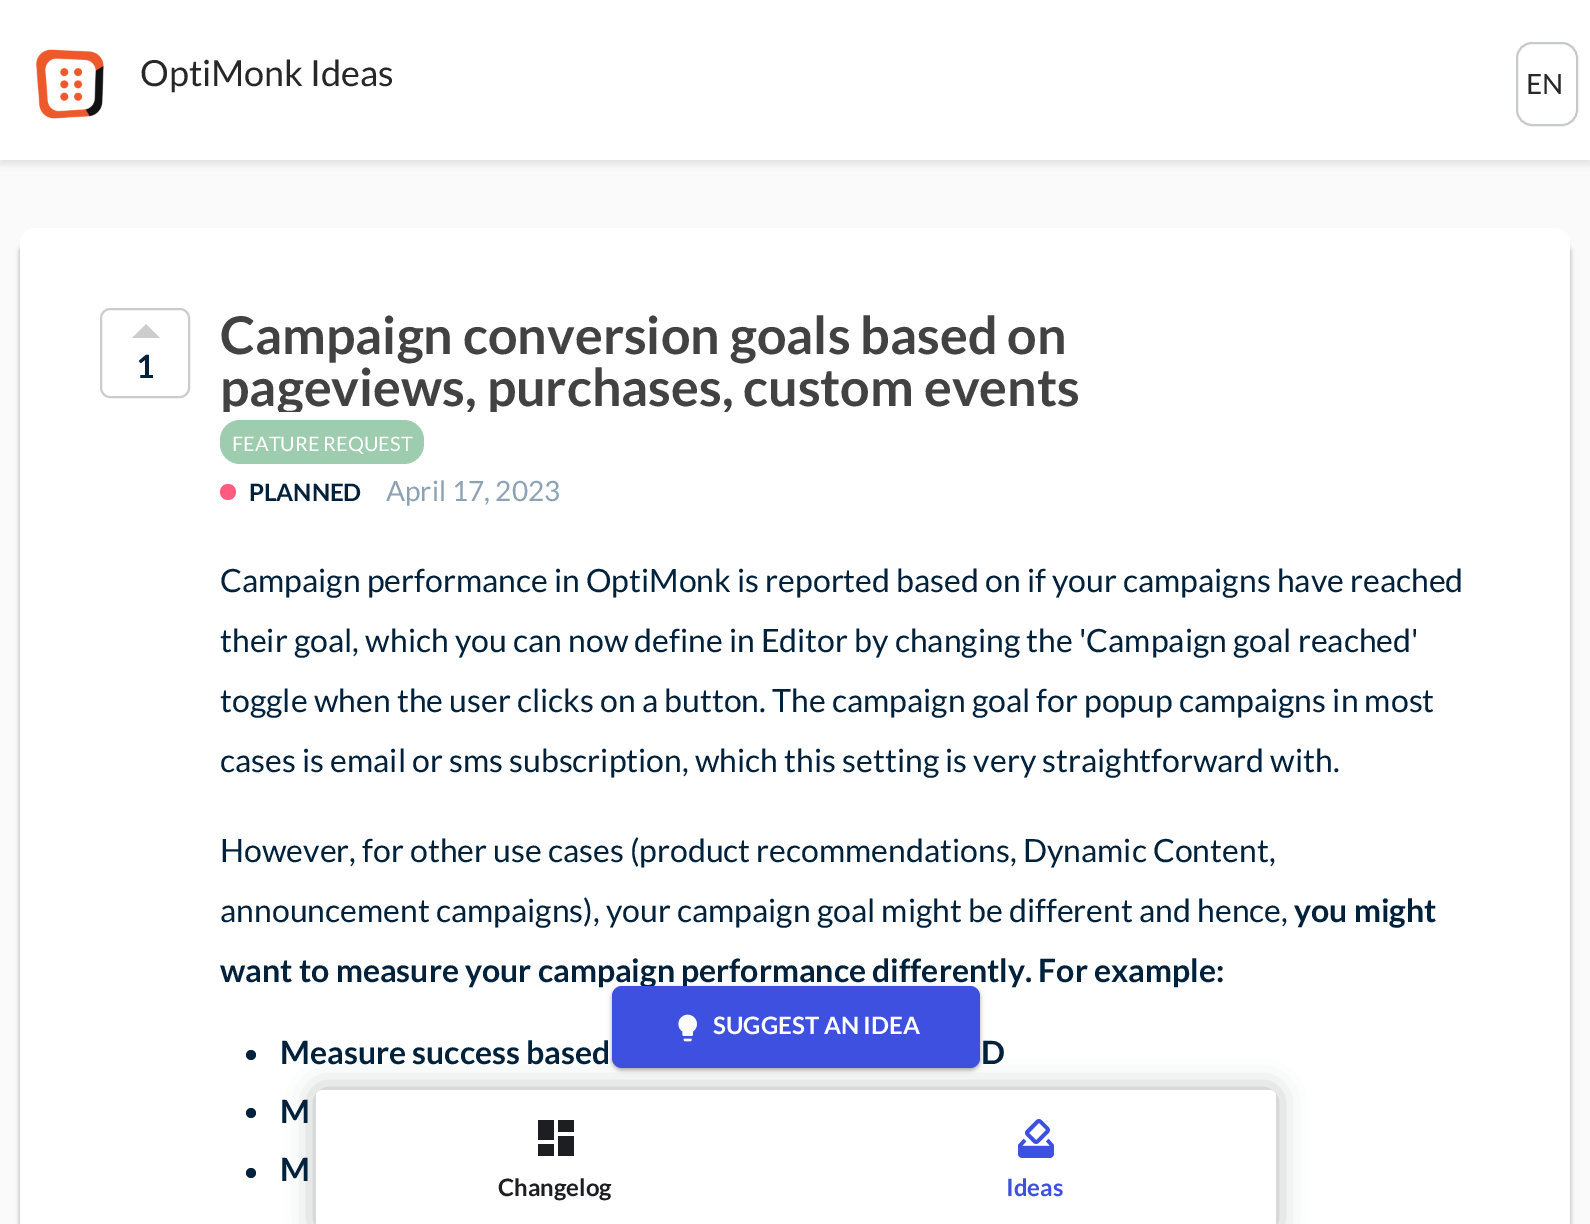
%!PS
<< /PageSize [1590 1224] /PageUsesTransparency true >> setpagedevice
/m/moveto load def
/l/rlineto load def
/c/rcurveto load def
/z/closepath load def
/f/fill load def
/s/stroke load def
/q/gsave load def
/Q_/grestore load def
/w/setlinewidth load def
/C { dup -16 bitshift 255 div exch dup -8 bitshift 255 and 255 div exch 255 and 255 div setrgbcolor } def
/F { [ exch dup neg 0 0 3 -1 roll 0 0 ] selectfont } def
/T { moveto show } def
/R { rectfill } def
/A { dup .setfillconstantalpha .setstrokeconstantalpha } def
/O { newpath 0 360 arc closepath } def
/Q { 5 dict begin { /r /h /w /y /x } { exch def } forall
  x r add y moveto x w add y 2 copy h add r arct x w add y h add x 1 index r arct
  x y h add x y r arct x y 2 copy exch w add exch r arct closepath end } def
/S { 12 dict begin { /a /b /q /h /w /y /x } { exch def } forall gsave /was 0 def
  9 -2 -9 { dup b mul 4 div /e exch def 1 sub .425 mul 2.718 exch exp 1 add a .99 .min exch div /now exch def
    1 1 now sub 1 was sub div sub A /was now def
    w h .min e 2 mul add 0 gt { x e sub y e sub w e 2 mul add h e 2 mul add
      q e add b .6 mul add w h .min 2 div e add .min 0 .max Q fill } if } for grestore end } def
/I { 5 dict begin { /h /w /y /x /name } { exch def } forall
  gsave x y translate w h scale
  w h 8 [w 0 0 h 0 0] name (r) file false 3 colorimage grestore end } def
0 .pushpdf14devicefilter
0 1224 translate 1 -1 scale
4 setmiterlimit
16#FAFAFA C
0 0 1590 1224 R
16#000000 C
0 4 1590 160 0 4 .1 S
16#FFFFFF C
0 0 1590 160 R
/Lato-Regular 36 F
16#272727 C
(OptiMonk Ideas) 140 86 T
(1.rgb) 36 49 68 70 I
16#C8C9CA C
2 w
1517 43 60 82 15 Q s
/Lato-Regular 28 F
16#272727 C
(EN) 1526 94 T
16#000000 C
20 246 1550 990 6 2 .24 S
20 246 1550 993 6 3 .12 S
16#FFFFFF C
36 228 m 1518 0 l 9 0 16 7 16 16 c 0 980 l -1550 0 l 0 -980 l 0 -9 7 -16 16 -16 c z f
16#CCCCCC C
101 309 88 88 9 Q s
160 338 m -28 0 l 14 -14 l z f
/Lato-Bold 32 F
16#00213C C
(1) 136 378 T
/Lato-Bold 52 F
16#424242 C
(Campaign conversion goals based on) 220 354 T
q
220 308 1080 104 rectclip
(pageviews, purchases, custom events) 220 406 T
Q_
16#9ECCAF C
220 420 204 44 20 Q f
/Lato-Regular 20 F
16#FFFFFF C
(FEATURE REQUEST) 232 451 T
16#FF5A80 C
228 492 8 O f
/Lato-Bold 24 F
16#00213C C
(PLANNED) 249 501 T
/Lato-Regular 28 F
16#8DA2B5 C
(April 17, 2023) 386 501 T
/Lato-Regular 32 F
16#00213C C
(Campaign performance in OptiMonk is reported based on if your campaigns have reached) 220 592 T
(their goal, which you can now define in Editor by changing the 'Campaign goal reached') 220 652 T
(toggle when the user clicks on a button. The campaign goal for popup campaigns in most) 220 712 T
(cases is email or sms subscription, which this setting is very straightforward with.) 220 772 T
(However, for other use cases \(product recommendations, Dynamic Content,) 220 862 T
(announcement campaigns\), your campaign goal might be different and hence,) 220 922 T
/Lato-Bold 32 F
(you might) 1294 922 T
(want to measure your campaign performance differently. For example:) 220 982 T
251 1055 5 O f
(Measure success based) 280 1064 T
(D) 981 1064 T
251 1113 5 O f
(M) 280 1123 T
251 1173 5 O f
(M) 280 1181 T
16#000000 C
612 988 368 82 10 2 .24 S
612 988 368 82 10 3 .12 S
16#3D50E0 C
612 986 368 82 10 Q f
(2.rgb) 678 1014 19 28 I
/Lato-Bold 24 F
16#FFFFFF C
(SUGGEST AN IDEA) 713 1034 T
16#262C31 C
316 1090 960 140 6 14 .36 S
16#FFFFFF C
316 1090 960 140 6 Q f
(3.rgb) 538 1120 36 36 I
16#1C1E21 C
(Changelog) 498 1196 T
(4.rgb) 1018 1119 36 39 I
16#3D50E0 C
(Ideas) 1006 1196 T
.poppdf14devicefilter showpage
